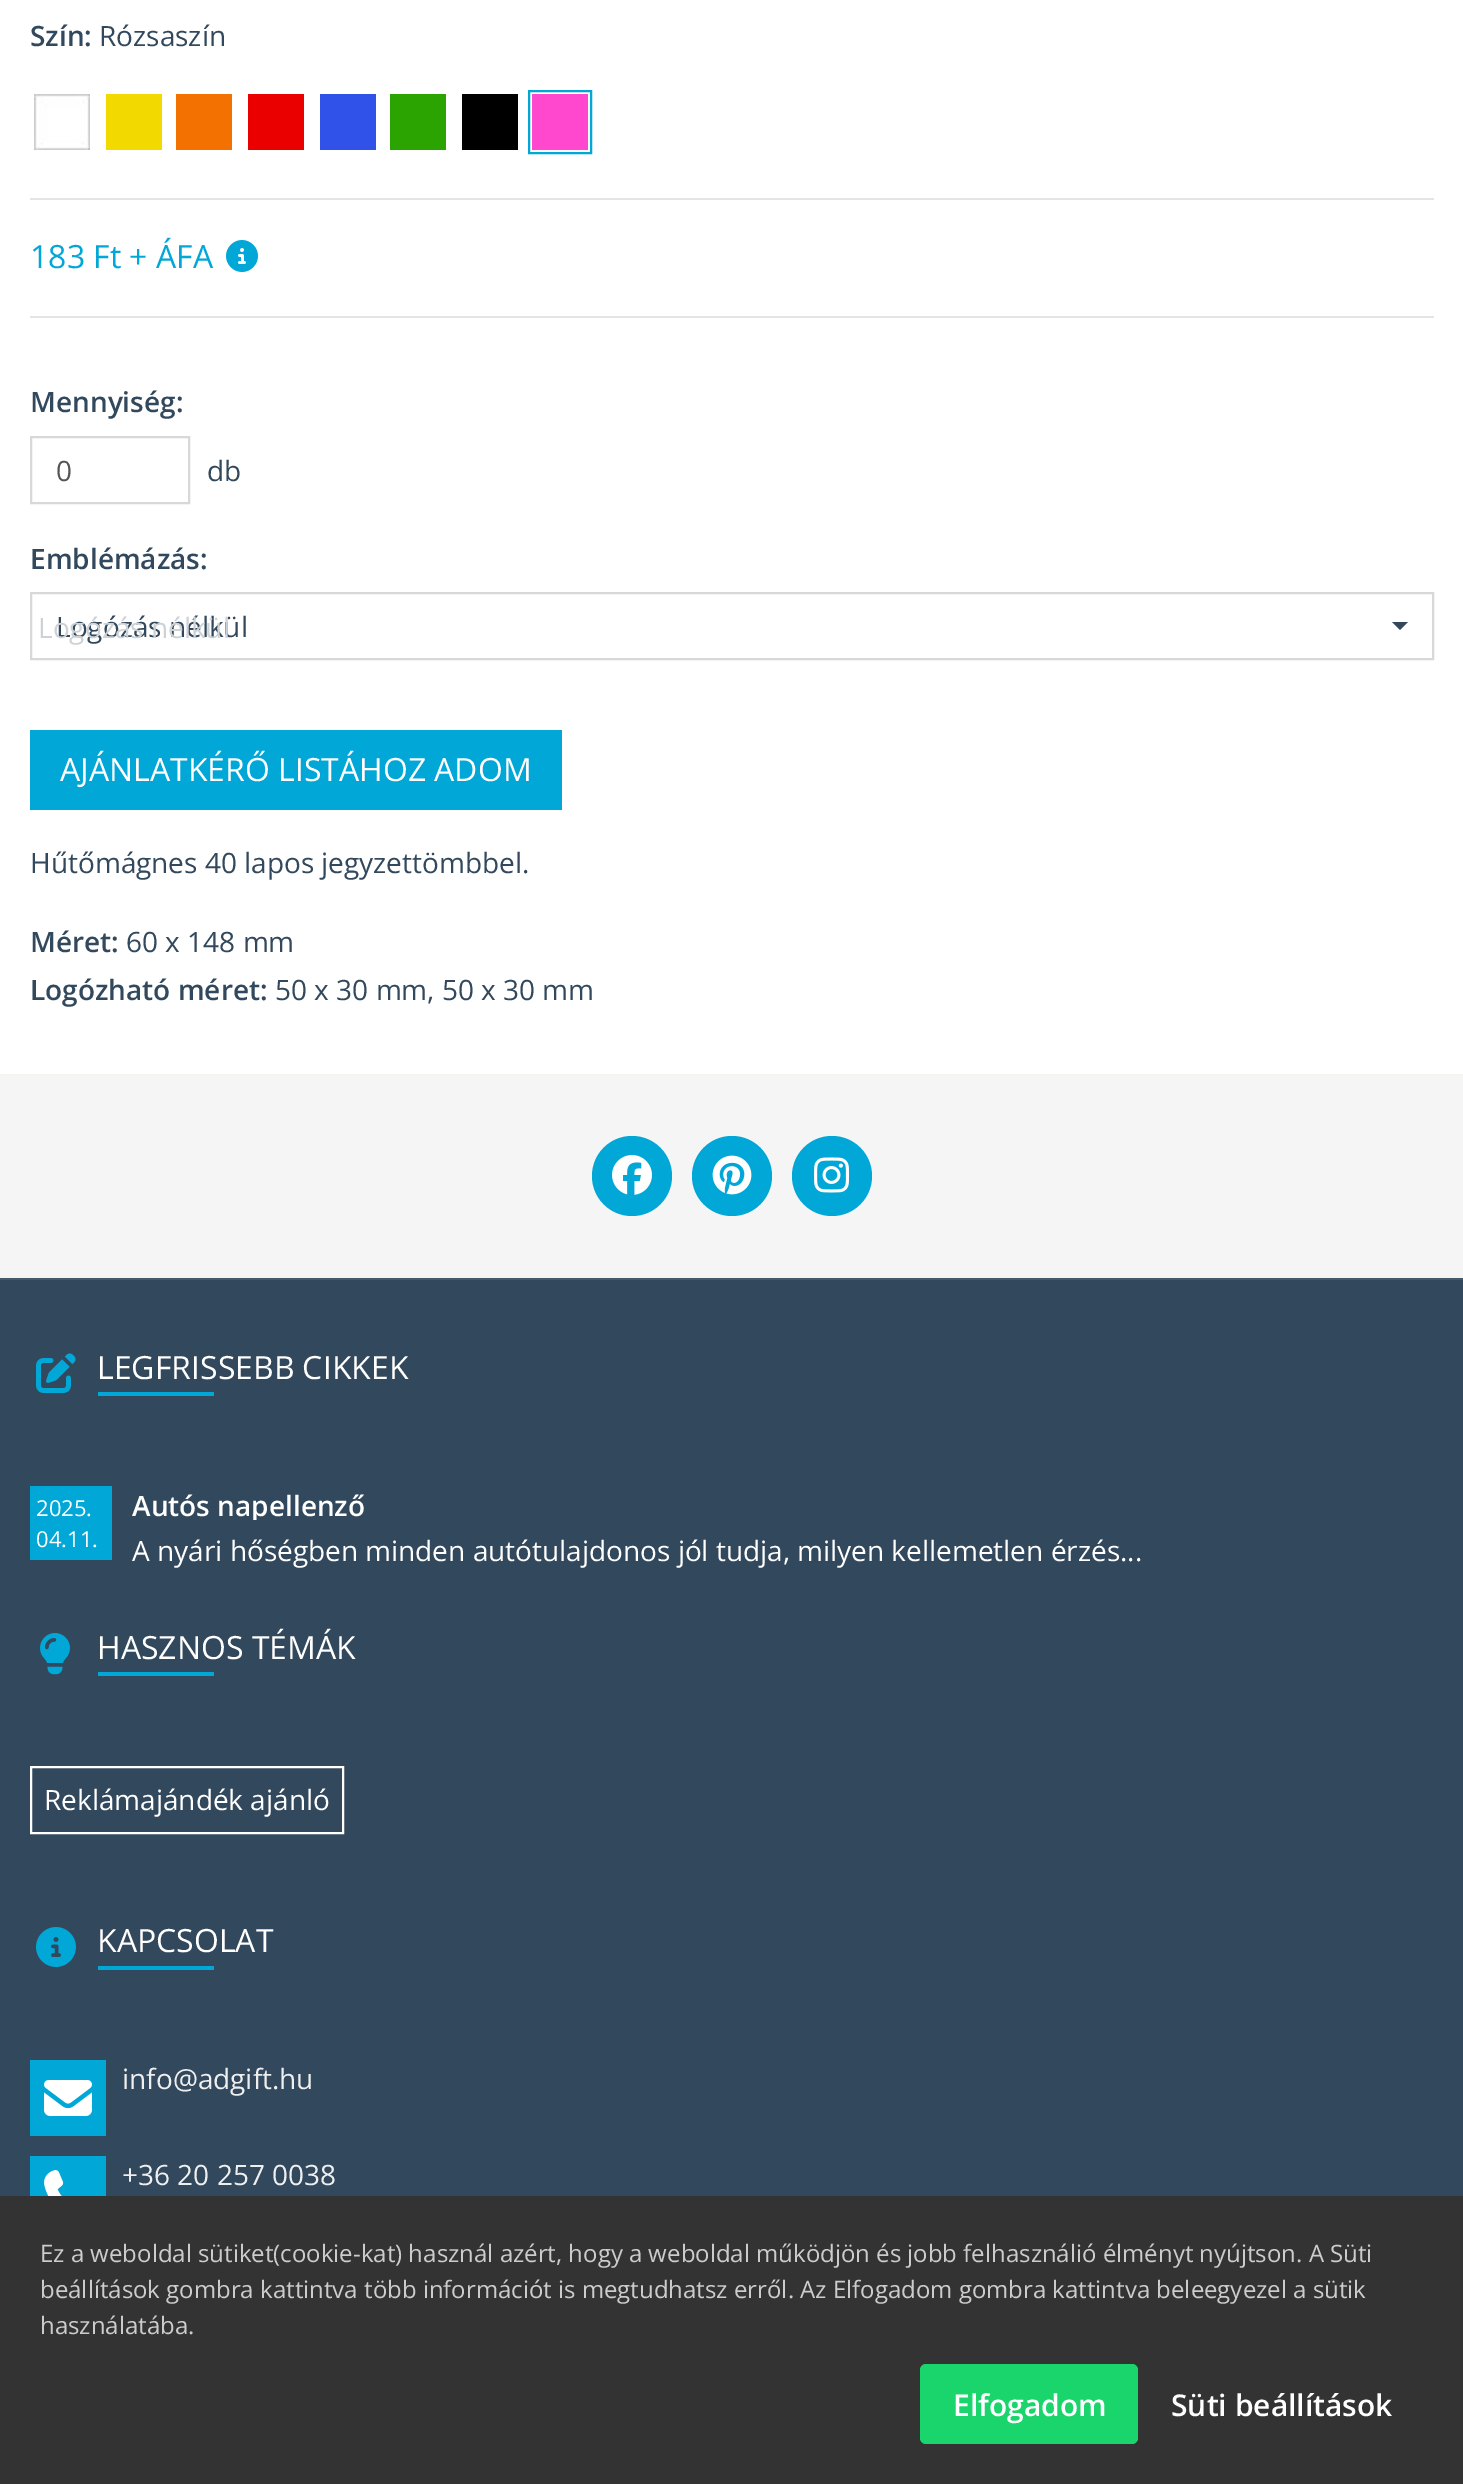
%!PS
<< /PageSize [1463 2484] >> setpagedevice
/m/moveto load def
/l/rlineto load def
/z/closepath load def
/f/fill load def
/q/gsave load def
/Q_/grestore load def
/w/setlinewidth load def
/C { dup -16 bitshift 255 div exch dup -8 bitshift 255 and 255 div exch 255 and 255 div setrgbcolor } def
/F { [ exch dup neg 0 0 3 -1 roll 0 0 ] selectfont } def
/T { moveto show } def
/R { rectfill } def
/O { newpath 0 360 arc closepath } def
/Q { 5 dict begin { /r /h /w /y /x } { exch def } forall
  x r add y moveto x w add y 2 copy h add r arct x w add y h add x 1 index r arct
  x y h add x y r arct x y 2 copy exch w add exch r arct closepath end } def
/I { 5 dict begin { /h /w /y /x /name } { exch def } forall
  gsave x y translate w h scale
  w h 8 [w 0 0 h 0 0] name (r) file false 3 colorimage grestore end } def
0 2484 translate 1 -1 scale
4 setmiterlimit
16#FFFFFF C
0 0 1463 2484 R
/OpenSans-SemiBold 28 F
16#32485C C
(Szín:) 30 46 T
/OpenSans-Regular 28 F
(Rózsaszín) 99 46 T
(1.rgb) 34 94 56 56 I
16#F2D900 C
106 94 56 56 R
16#F37100 C
176 94 56 56 R
16#EB0000 C
248 94 56 56 R
16#3052E9 C
320 94 56 56 R
16#2BA401 C
390 94 56 56 R
16#000000 C
462 94 56 56 R
16#00A7D7 C
2 w
529 91 62 62 rectstroke
16#FF48CE C
532 94 56 56 R
16#E4E4E4 C
30 198 1404 2 R
/OpenSans-Regular 32 F
16#00A7D7 C
(183 Ft + ÁFA) 30 268 T
(2.rgb) 226 240 32 32 I
16#E4E4E4 C
30 316 1404 2 R
/OpenSans-SemiBold 28 F
16#32485C C
(Mennyiség:) 30 412 T
16#D8D8D8 C
31 437 158 66 rectstroke
/OpenSans-Regular 28 F
16#555555 C
(0) 56 481 T
16#32485C C
(db) 207 481 T
/OpenSans-SemiBold 28 F
(Emblémázás:) 30 569 T
16#D8D8D8 C
31 593 1402 66 rectstroke
/OpenSans-Regular 28 F
16#32485C C
(Logózás nélkül) 56 637 T
1392 622 m 16 0 l -8 8 l z f
16#CDD2D7 C
(Logózás nélkül) 38 638 T
16#00A7D7 C
30 730 532 80 R
/OpenSans-Regular 32 F
16#FFFFFF C
(AJÁNLATKÉRŐ LISTÁHOZ ADOM) 60 781 T
/OpenSans-Regular 28 F
16#32485C C
(Hűtőmágnes 40 lapos jegyzettömbbel.) 30 873 T
/OpenSans-SemiBold 28 F
(Méret:) 30 952 T
/OpenSans-Regular 28 F
(60 x 148 mm) 126 952 T
/OpenSans-SemiBold 28 F
(Logózható méret:) 30 1000 T
/OpenSans-Regular 28 F
(50 x 30 mm, 50 x 30 mm) 275 1000 T
16#F5F5F5 C
0 1076 1463 200 R
16#F7F4ED C
0 1074 1463 2 R
0 1276 1463 2 R
16#00A7D7 C
632 1176 40 O f
(3.rgb) 612 1155 40 40 I
732 1176 40 O f
(4.rgb) 712 1155 40 40 I
832 1176 40 O f
(5.rgb) 814 1157 36 36 I
16#32485C C
0 1280 1463 916 R
16#44596B C
0 1278 1463 2 R
(6.rgb) 36 1353 40 40 I
/OpenSans-Regular 32 F
16#FFFFFF C
(LEGFRISSEBB CIKKEK) 97 1379 T
16#00A7D7 C
98 1392 116 4 R
30 1486 82 74 R
/OpenSans-Regular 22 F
16#FFFFFF C
(2025.) 36 1516 T
(04.11.) 36 1547 T
q
132 1490 234 30 rectclip
/OpenSans-SemiBold 28 F
(Autós napellenző) 132 1516 T
Q_
/OpenSans-Regular 28 F
(A nyári hőségben minden autótulajdonos jól tudja, milyen kellemetlen érzés...) 132 1561 T
(7.rgb) 40 1633 30 42 I
/OpenSans-Regular 32 F
(HASZNOS TÉMÁK) 97 1659 T
16#00A7D7 C
98 1672 116 4 R
16#FFFFFF C
31 1767 312 66 rectstroke
/OpenSans-Regular 28 F
(Reklámajándék ajánló) 44 1810 T
(8.rgb) 36 1927 40 40 I
/OpenSans-Regular 32 F
(KAPCSOLAT) 97 1952 T
16#00A7D7 C
98 1966 116 4 R
30 2060 76 76 R
(9.rgb) 44 2080 48 36 I
/OpenSans-Regular 28 F
16#EFEFEF C
(info@adgift.hu) 122 2089 T
16#00A7D7 C
30 2156 76 40 R
(10.rgb) 44 2170 20 26 I
16#EFEFEF C
(+36 20 257 0038) 122 2185 T
16#333333 C
0 2196 1463 288 R
/OpenSans-Regular 24 F
16#CCCCCC C
(Ez a weboldal sütiket\(cookie-kat\) használ azért, hogy a weboldal működjön és jobb felhasználió élményt nyújtson. A Süti) 40 2262 T
(beállítások gombra kattintva több információt is megtudhatsz erről. Az Elfogadom gombra kattintva beleegyezel a sütik) 40 2298 T
(használatába.) 40 2334 T
16#1AD56C C
920 2364 218 80 6 Q f
/OpenSans-SemiBold 30 F
16#FFFFFF C
(Elfogadom) 953 2416 T
(Süti beállítások) 1171 2416 T
showpage
